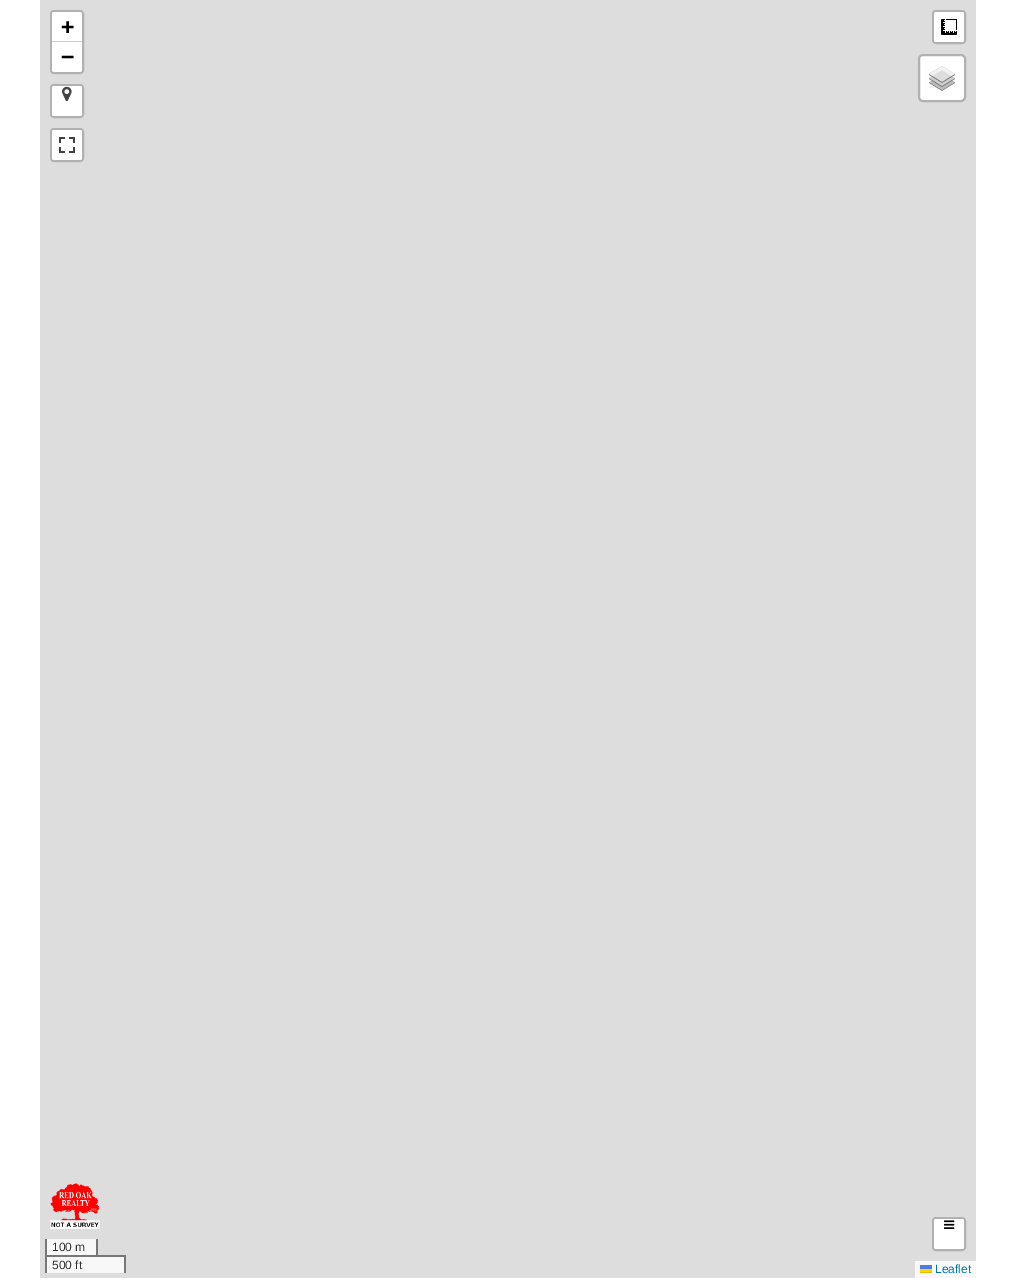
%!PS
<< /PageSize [1016 1278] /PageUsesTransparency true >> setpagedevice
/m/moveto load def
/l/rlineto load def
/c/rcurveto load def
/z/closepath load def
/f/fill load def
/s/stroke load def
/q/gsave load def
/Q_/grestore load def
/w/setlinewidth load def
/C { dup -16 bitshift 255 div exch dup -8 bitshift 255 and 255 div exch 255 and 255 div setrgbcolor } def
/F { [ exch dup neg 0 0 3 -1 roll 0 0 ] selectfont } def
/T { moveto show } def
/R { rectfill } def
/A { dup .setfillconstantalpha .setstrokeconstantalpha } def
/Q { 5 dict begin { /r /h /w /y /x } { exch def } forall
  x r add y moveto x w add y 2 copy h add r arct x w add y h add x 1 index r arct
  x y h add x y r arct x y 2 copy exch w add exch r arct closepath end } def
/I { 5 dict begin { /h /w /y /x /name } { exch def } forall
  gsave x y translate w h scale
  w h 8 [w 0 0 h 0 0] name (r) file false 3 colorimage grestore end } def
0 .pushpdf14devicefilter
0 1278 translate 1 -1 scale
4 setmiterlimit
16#FFFFFF C
0 0 1016 1278 R
16#DDDDDD C
40 0 936 1278 R
16#F8F8F8 C
47 1257 77 16 R
16#B1B1B1 C
2 w
51 11 32 62 3 Q s
16#FFFFFF C
54 12 m 26 0 l 1 0 2 1 2 2 c 0 28 l -30 0 l 0 -28 l 0 -1 1 -2 2 -2 c z f
16#CCCCCC C
52 41 30 1 R
/DejaVuSansMono-Bold 22 F
16#000000 C
(+) 61 34 T
16#FFFFFF C
52 42 m 30 0 l 0 28 l 0 1 -1 2 -2 2 c -26 0 l -1 0 -2 -1 -2 -2 c z f
16#000000 C
(−) 61 64 T
16#B1B1B1 C
51 85 32 32 3 Q s
16#FFFFFF C
52 86 30 30 2 Q f
(1.rgb) 62 86 10 16 I
16#B1B1B1 C
51 129 32 32 3 Q s
16#FFFFFF C
52 130 30 30 2 Q f
(2.rgb) 59 137 16 16 I
0.2 A
16#000000 C
933 11 32 32 3 Q s
1 A
16#FFFFFF C
934 12 30 30 2 Q f
(3.rgb) 941 19 16 16 I
919 55 46 46 4 Q q f Q_
16#B1B1B1 C
s
(4.rgb) 929 66 26 25 I
(5.rgb) 50 1183 50 46 I
16#F8F8F8 C
47 1239 49 16 R
16#777777 C
96 1239 2 18 R
45 1239 2 18 R
/LiberationSans-Regular 12 F
16#333333 C
(100 m) 52 1251 T
16#777777 C
45 1255 81 2 R
124 1255 2 18 R
45 1255 2 18 R
16#333333 C
(500 ft) 52 1269 T
16#B1B1B1 C
933 1218 32 32 3 Q s
16#FFFFFF C
934 1219 30 30 2 Q f
(6.rgb) 944 1220 11 9 I
16#F8F8F8 C
915 1261 61 17 R
16#0078A8 C
(Leaflet) 935 1273 T
16#4C7BE1 C
920 1265 12 4 R
16#FFD500 C
920 1269 12 3 R
16#E0BC00 C
920 1272 12 1 R
.poppdf14devicefilter showpage
